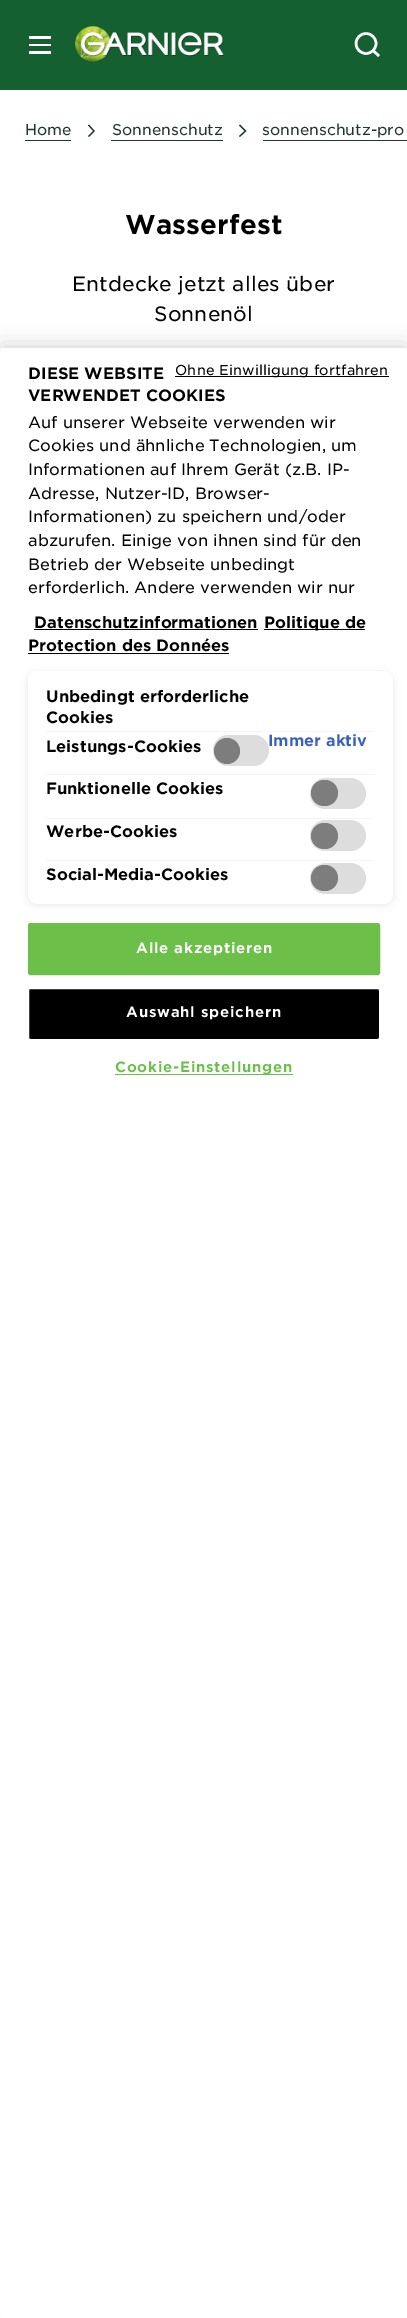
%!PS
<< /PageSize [407 2318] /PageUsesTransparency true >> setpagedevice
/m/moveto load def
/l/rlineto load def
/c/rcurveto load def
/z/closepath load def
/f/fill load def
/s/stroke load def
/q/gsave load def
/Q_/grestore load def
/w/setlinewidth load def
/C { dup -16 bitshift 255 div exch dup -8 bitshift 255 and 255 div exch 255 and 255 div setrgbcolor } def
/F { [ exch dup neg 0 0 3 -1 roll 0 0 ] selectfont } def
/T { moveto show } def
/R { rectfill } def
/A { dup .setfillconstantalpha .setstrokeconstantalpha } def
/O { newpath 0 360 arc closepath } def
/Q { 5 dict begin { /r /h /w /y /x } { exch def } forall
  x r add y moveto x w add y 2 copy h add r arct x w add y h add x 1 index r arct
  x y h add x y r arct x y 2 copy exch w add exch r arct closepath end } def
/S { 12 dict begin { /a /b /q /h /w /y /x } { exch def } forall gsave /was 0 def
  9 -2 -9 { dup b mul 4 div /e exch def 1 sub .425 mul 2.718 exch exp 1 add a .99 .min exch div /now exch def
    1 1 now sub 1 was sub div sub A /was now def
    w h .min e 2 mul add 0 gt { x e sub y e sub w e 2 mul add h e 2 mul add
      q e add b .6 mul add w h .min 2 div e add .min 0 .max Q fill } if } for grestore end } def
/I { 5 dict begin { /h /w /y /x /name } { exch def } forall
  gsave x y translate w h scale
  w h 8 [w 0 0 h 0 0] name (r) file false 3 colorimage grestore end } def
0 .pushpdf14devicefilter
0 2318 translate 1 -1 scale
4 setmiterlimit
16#FFFFFF C
0 0 407 2318 R
16#156031 C
0 0 407 90 R
16#FFFFFF C
29 36 22 3 R
29 44 22 2 R
29 51 22 3 R
(1.rgb) 75 26 150 36 I
2.5 w
366 43.5 10 O s
1 setlinejoin
373 50.5 m 6 5.5 l s
16#21362C C
25 140 46 1 R
/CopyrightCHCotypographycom-Light 15 F
(Home) 25 135 T
1.2 w
0 setlinejoin
88.5 136.5 m 5.5 -5.5 l -5.5 -6 l s
111 140 112 1 R
(Sonnenschutz) 112 135 T
239.5 136.5 m 6 -5.5 l -6 -6 l s
263 140 144 1 R
(sonnenschutz-pro) 262 135 T
/CopyrightCHCotypographycom-Regular 26.25 F
16#000000 C
125 234 m .1 0 (Wasserfest) ashow
/CopyrightCHCotypographycom-Light 20 F
72 291 m .1 0 (Entdecke jetzt alles über) ashow
154 321 m .1 0 (Sonnenöl) ashow
0 348 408 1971 3 11 .2 S
16#FFFFFF C
0 348 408 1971 3 Q f
16#000000 C
175 376 214 1 R
/CopyrightCHCotypographycom-Light 13.8 F
175 375 m .15 0 (Ohne Einwilligung fortfahren) ashow
/CopyrightCHCotypographycom-Regular 15.75 F
(DIESE WEBSITE) 28 379 T
(VERWENDET COOKIES) 28 401 T
/CopyrightCHCotypographycom-Light 15.75 F
(Auf unserer Webseite verwenden wir) 28 428 T
(Cookies und ähnliche Technologien, um) 28 451 T
(Informationen auf Ihrem Gerät \(z.B. IP-) 28 475 T
(Adresse, Nutzer-ID, Browser-) 28 499 T
(Informationen\) zu speichern und/oder) 28 522 T
(abzurufen. Einige von ihnen sind für den) 28 546 T
(Betrieb der Webseite unbedingt) 28 570 T
(erforderlich. Andere verwenden wir nur) 28 593 T
/CopyrightCHCotypographycom-Regular 15.75 F
(Datenschutzinformationen) 34 628 T
34 629 224 1 R
264 629 101 1 R
(Politique de) 264 628 T
(Protection des Données) 28 651 T
28 653 201 1 R
28 673 365 232 10 4 .1 S
16#FFFFFF C
28 671 365 233 10 Q f
16#F4F4F4 C
46 731 328 1 R
16#000000 C
(Unbedingt erforderliche) 46 702 T
(Cookies) 46 723 T
/CopyrightCHCotypographycom-Regular 15.5 F
16#3860BE C
(Immer aktiv) 268 746 T
16#F4F4F4 C
46 774 328 1 R
/CopyrightCHCotypographycom-Regular 15.75 F
16#000000 C
(Leistungs-Cookies) 46 752 T
16#DDDDDD C
228 735 m 26 0 l 8 0 15 7 15 15 c 0 9 -7 16 -15 16 c -26 0 l -8 0 -15 -7 -15 -16 c 0 -8 7 -15 15 -15 c z f
16#7D7D7D C
227 751 13 O f
16#F4F4F4 C
46 818 328 1 R
16#000000 C
(Funktionelle Cookies) 46 794 T
16#DDDDDD C
326 778 m 24 0 l 9 0 16 7 16 16 c 0 8 -7 15 -16 15 c -24 0 l -9 0 -16 -7 -16 -15 c 0 -9 7 -16 16 -16 c z f
16#7D7D7D C
311 780 27 26 13 Q f
16#F4F4F4 C
46 860 328 1 R
16#000000 C
(Werbe-Cookies) 46 837 T
16#DDDDDD C
326 820 m 24 0 l 9 0 16 7 16 16 c 0 8 -7 15 -16 15 c -24 0 l -9 0 -16 -7 -16 -15 c 0 -9 7 -16 16 -16 c z f
16#7D7D7D C
311 823 27 26 13 Q f
16#000000 C
(Social-Media-Cookies) 46 880 T
16#DDDDDD C
326 863 m 24 0 l 9 0 16 7 16 15 c 0 9 -7 16 -16 16 c -24 0 l -9 0 -16 -7 -16 -16 c 0 -8 7 -15 16 -15 c z f
16#7D7D7D C
311 865 27 26 13 Q f
16#6CC04A C
28.5 923.5 351 51 2 Q q f Q_
1 w
s
/CopyrightCHCotypographycom-Regular 14.25 F
16#FFFFFF C
136 953 m .75 0 (Alle akzeptieren) ashow
16#000001 C
28.5 988.5 351 51 2 Q q f Q_
16#FFFFFF C
s
126 1017 m .75 0 (Auswahl speichern) ashow
16#6CC04A C
115 1074 178 1 R
115 1072 m .75 0 (Cookie-Einstellungen) ashow
.poppdf14devicefilter showpage
